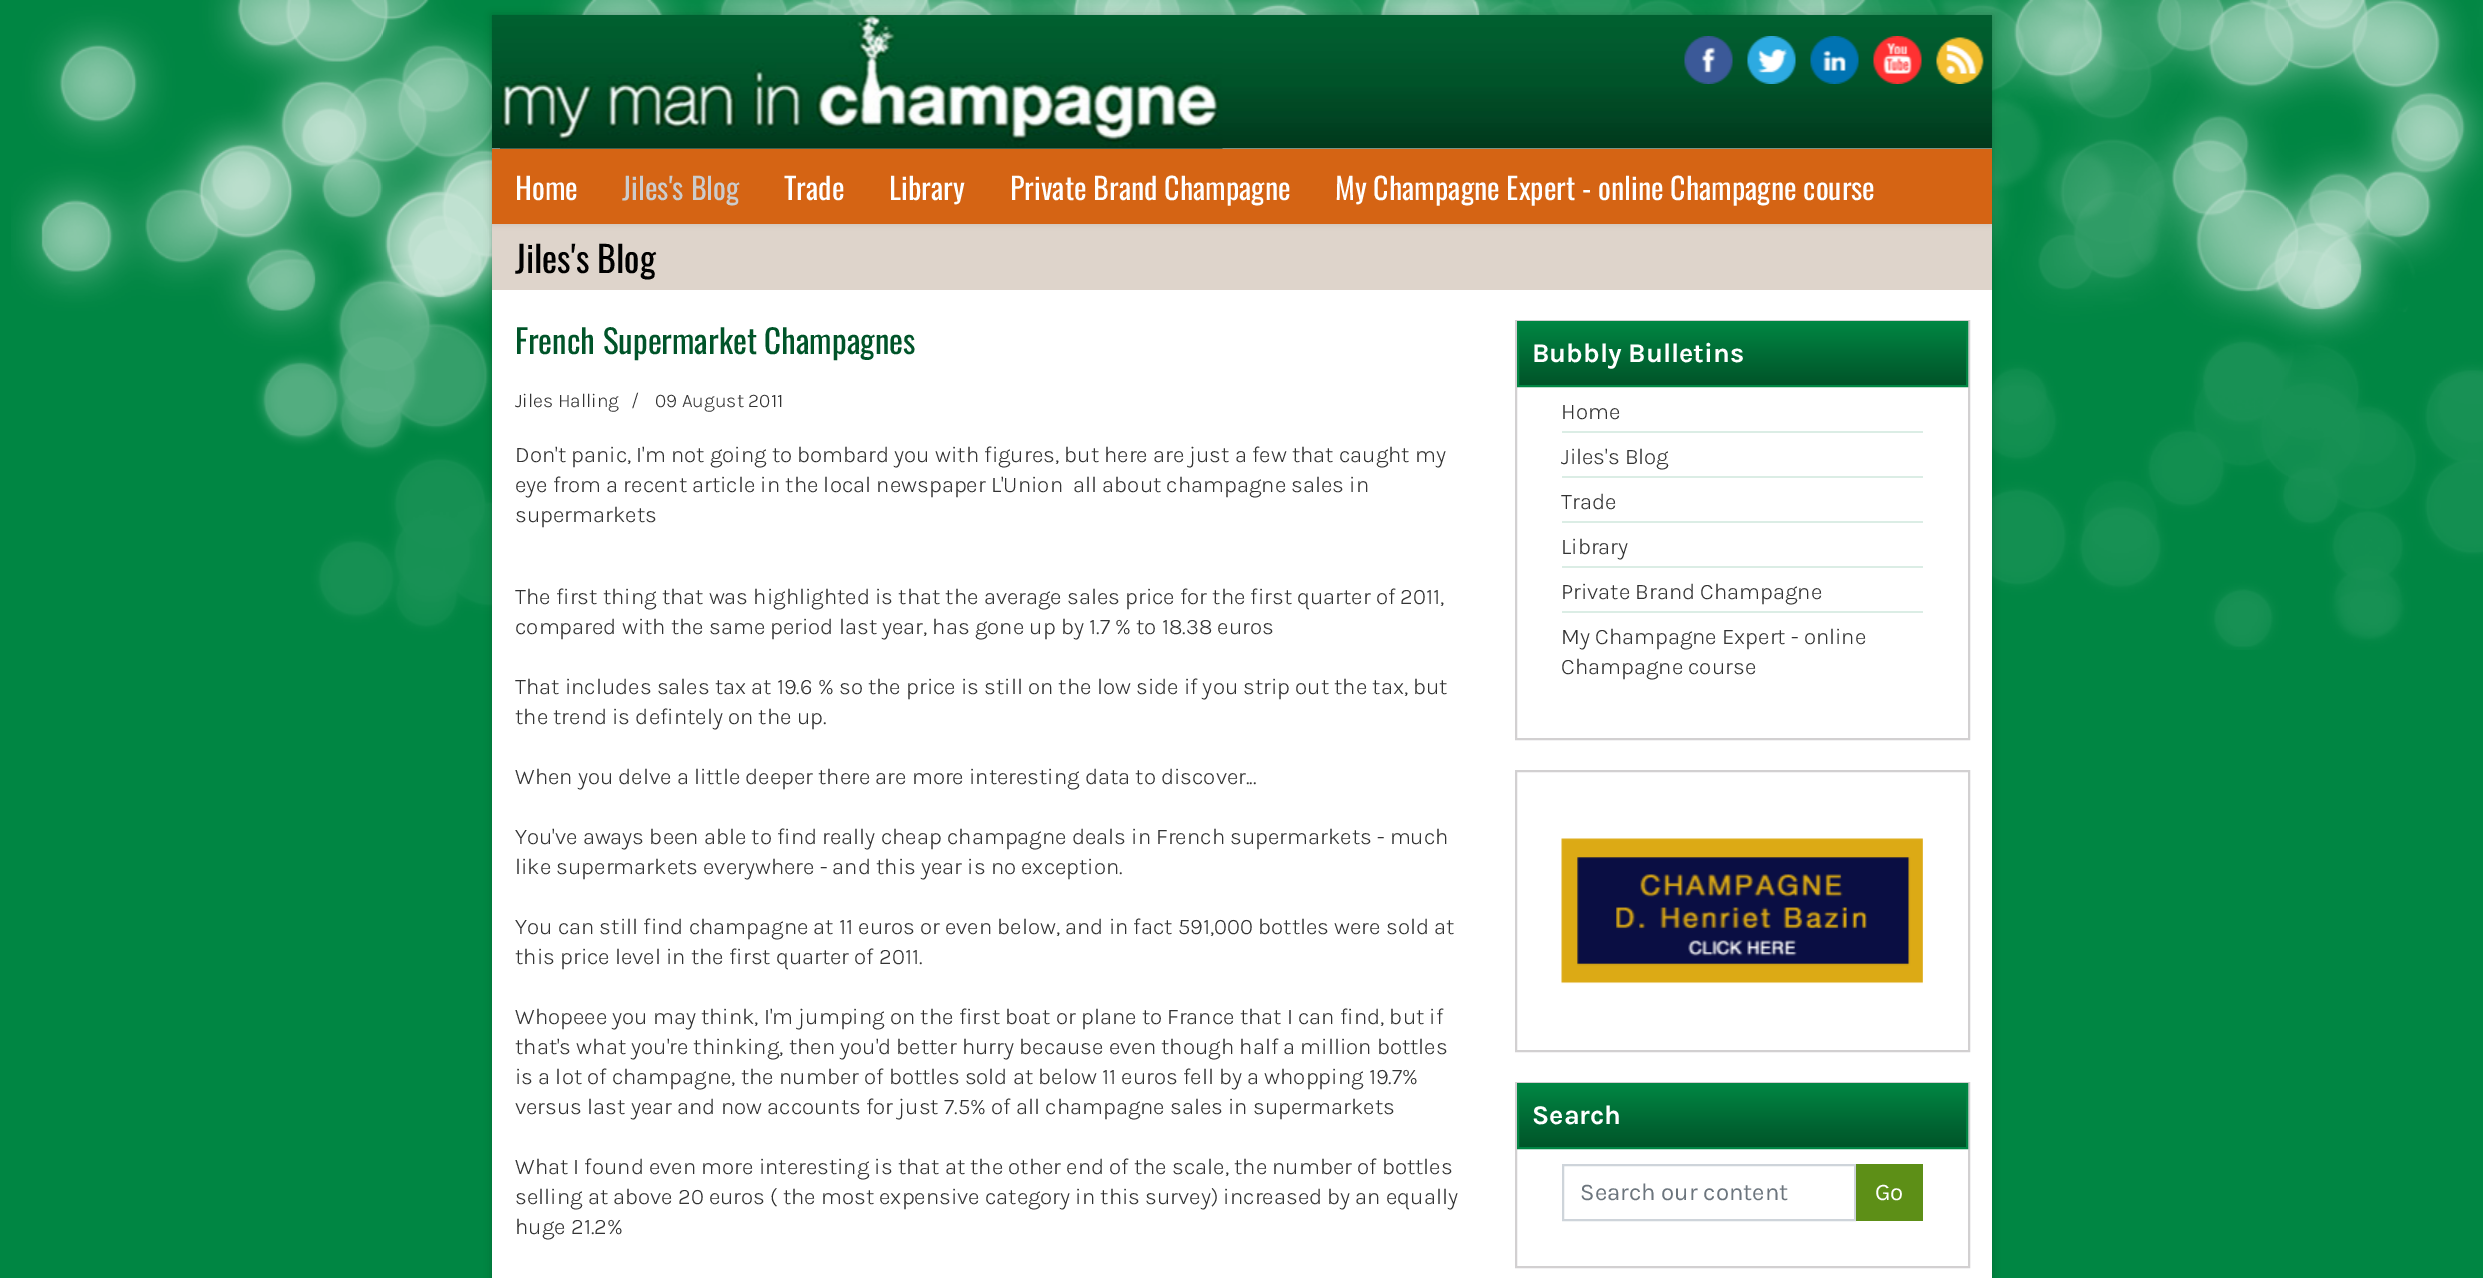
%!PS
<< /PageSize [2483 1278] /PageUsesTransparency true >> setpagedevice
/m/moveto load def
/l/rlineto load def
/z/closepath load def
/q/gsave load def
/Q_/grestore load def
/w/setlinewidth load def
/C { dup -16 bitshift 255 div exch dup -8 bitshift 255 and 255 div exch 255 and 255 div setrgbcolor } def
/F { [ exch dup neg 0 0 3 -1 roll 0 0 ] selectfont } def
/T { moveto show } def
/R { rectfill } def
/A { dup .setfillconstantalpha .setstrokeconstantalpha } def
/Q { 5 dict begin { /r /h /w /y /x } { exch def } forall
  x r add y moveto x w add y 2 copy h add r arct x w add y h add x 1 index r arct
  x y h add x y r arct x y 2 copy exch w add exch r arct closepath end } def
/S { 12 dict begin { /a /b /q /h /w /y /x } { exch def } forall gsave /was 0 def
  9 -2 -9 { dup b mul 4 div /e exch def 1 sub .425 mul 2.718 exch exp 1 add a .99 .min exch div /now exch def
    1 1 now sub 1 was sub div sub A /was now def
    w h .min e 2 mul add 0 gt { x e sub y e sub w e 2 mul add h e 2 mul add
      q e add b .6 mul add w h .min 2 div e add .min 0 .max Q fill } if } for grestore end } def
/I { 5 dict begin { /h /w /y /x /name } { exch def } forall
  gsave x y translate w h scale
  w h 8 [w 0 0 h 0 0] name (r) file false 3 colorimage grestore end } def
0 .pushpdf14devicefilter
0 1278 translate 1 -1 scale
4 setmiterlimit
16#008643 C
0 0 2483 1278 R
(1.rgb) 11 0 2472 650 I
16#000000 C
492 15 1500 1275 0 4 .2 S
16#FFFFFF C
492 148 1500 1130 R
(2.rgb) 492 15 1500 134 I
(3.rgb) 500 15 723 134 I
(4.rgb) 1684 36 49 48 I
(5.rgb) 1747 36 49 48 I
(6.rgb) 1810 36 49 48 I
(7.rgb) 1873 36 49 48 I
(8.rgb) 1936 37 48 47 I
16#DED4CB C
492 224 1500 66 R
q
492 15 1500 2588 rectclip
16#000000 C
492 149 1500 75 0 3 .1 S
Q_
16#D56414 C
492 149 1500 75 R
/Oswald-Regular 30 F
16#FFFFFF C
(Home) 515 200 T
16#CCCCCC C
(Jiles's Blog) 622 200 T
16#FFFFFF C
(Trade) 784 200 T
(Library) 889 200 T
(Private Brand Champagne) 1010 200 T
(My Champagne Expert - online Champagne course) 1335 200 T
/Oswald-Regular 36 F
16#000000 C
(Jiles's Blog) 515 273 T
/Oswald-Regular 33 F
16#005429 C
(French Supermarket Champagnes) 515 354 T
/Karla-Light 19.5 F
16#333333 C
(Jiles Halling) 515 407 T
(/) 631 407 T
(09 August 2011) 655 407 T
/Karla-Light 22.5 F
(Don't panic, I'm not going to bombard you with figures, but here are just a few that caught my) 515 462 T
(eye from a recent article in the local newspaper L'Union  all about champagne sales in) 515 492 T
(supermarkets) 515 522 T
(The first thing that was highlighted is that the average sales price for the first quarter of 2011,) 515 604 T
(compared with the same period last year, has gone up by 1.7 % to 18.38 euros) 515 634 T
(That includes sales tax at 19.6 % so the price is still on the low side if you strip out the tax, but) 515 694 T
(the trend is defintely on the up.) 515 724 T
(When you delve a little deeper there are more interesting data to discover...) 515 784 T
(You've aways been able to find really cheap champagne deals in French supermarkets - much) 515 844 T
(like supermarkets everywhere - and this year is no exception.) 515 874 T
(You can still find champagne at 11 euros or even below, and in fact 591,000 bottles were sold at) 515 934 T
(this price level in the first quarter of 2011.) 515 964 T
(Whopeee you may think, I'm jumping on the first boat or plane to France that I can find, but if) 515 1024 T
(that's what you're thinking, then you'd better hurry because even though half a million bottles) 515 1054 T
(is a lot of champagne, the number of bottles sold at below 11 euros fell by a whopping 19.7%) 515 1084 T
(versus last year and now accounts for just 7.5% of all champagne sales in supermarkets) 515 1114 T
(What I found even more interesting is that at the other end of the scale, the number of bottles) 515 1174 T
(selling at above 20 euros \( the most expensive category in this survey\) increased by an equally) 515 1204 T
(huge 21.2%) 515 1234 T
16#D2D0D1 C
2 w
1516 321 453 418 rectstroke
q 1519 323 m 447 0 l 0 62 l -447 0 l z clip newpath
<< /ShadingType 2 /ColorSpace /DeviceRGB /Coords [1742 322 1742 386] /Extend [true true] /Function << /FunctionType 3 /Domain [0 1] /Functions [<< /FunctionType 2 /Domain [0 1] /C0 [0 .525 .263] /C1 [0 .475 .235] /N 1 >> << /FunctionType 2 /Domain [0 1] /C0 [0 .475 .235] /C1 [0 .424 .212] /N 1 >> << /FunctionType 2 /Domain [0 1] /C0 [0 .424 .212] /C1 [0 .376 .184] /N 1 >> << /FunctionType 2 /Domain [0 1] /C0 [0 .376 .184] /C1 [0 .329 .161] /N 1 >>] /Bounds [.25 .5 .75] /Encode [0 1 0 1 0 1 0 1] >> >> shfill Q_
16#008643 C
1518 322 449 64 rectstroke
/Karla-Bold 27 F
16#FFFFFF C
(Bubbly Bulletins) 1532 362 T
16#DBEDE5 C
1562 431 361 2 R
/Karla-Light 22.5 F
16#333333 C
(Home) 1561 419 T
16#DBEDE5 C
1562 476 361 2 R
16#333333 C
(Jiles's Blog) 1561 464 T
16#DBEDE5 C
1562 521 361 2 R
16#333333 C
(Trade) 1561 509 T
16#DBEDE5 C
1562 566 361 2 R
16#333333 C
(Library) 1561 554 T
16#DBEDE5 C
1562 611 361 2 R
16#333333 C
(Private Brand Champagne) 1561 599 T
(My Champagne Expert - online) 1561 644 T
(Champagne course) 1561 674 T
16#D2D0D1 C
1516 771 453 280 rectstroke
(9.rgb) 1561 838 362 146 I
1516 1083 453 184 rectstroke
q 1519 1085 m 447 0 l 0 62 l -447 0 l z clip newpath
<< /ShadingType 2 /ColorSpace /DeviceRGB /Coords [1742 1085 1742 1148] /Extend [true true] /Function << /FunctionType 3 /Domain [0 1] /Functions [<< /FunctionType 2 /Domain [0 1] /C0 [0 .525 .263] /C1 [0 .475 .235] /N 1 >> << /FunctionType 2 /Domain [0 1] /C0 [0 .475 .235] /C1 [0 .424 .212] /N 1 >> << /FunctionType 2 /Domain [0 1] /C0 [0 .424 .212] /C1 [0 .376 .184] /N 1 >> << /FunctionType 2 /Domain [0 1] /C0 [0 .376 .184] /C1 [0 .329 .161] /N 1 >>] /Bounds [.25 .5 .75] /Encode [0 1 0 1 0 1 0 1] >> >> shfill Q_
16#008643 C
1518 1084 449 64 rectstroke
/Karla-Bold 27 F
16#FFFFFF C
(Search) 1532 1124 T
16#CED4DA C
1563 1165 292 55 rectstroke
/Karla-Regular 24 F
16#6C757D C
(Search our content) 1580 1200 T
16#5D8F17 C
1856 1164 67 57 R
16#FFFFFF C
(Go) 1875 1200 T
.poppdf14devicefilter showpage
